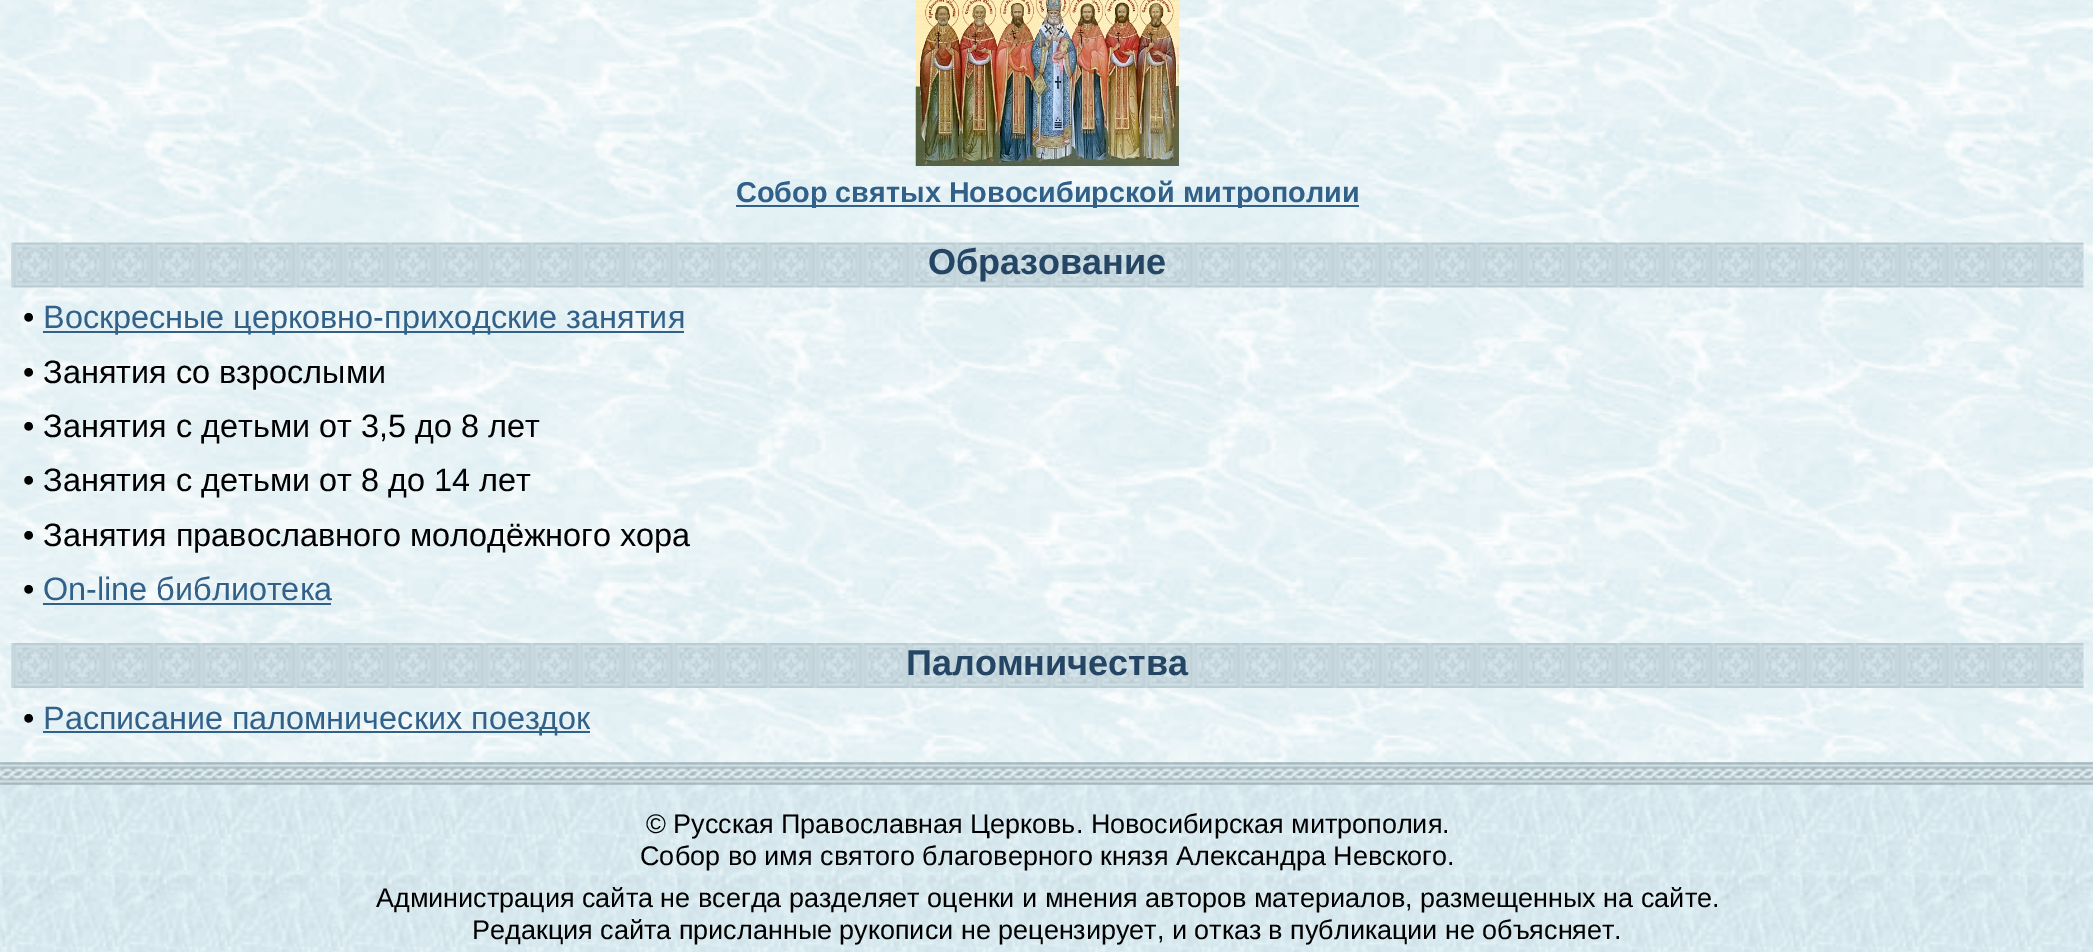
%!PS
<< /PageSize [2093 952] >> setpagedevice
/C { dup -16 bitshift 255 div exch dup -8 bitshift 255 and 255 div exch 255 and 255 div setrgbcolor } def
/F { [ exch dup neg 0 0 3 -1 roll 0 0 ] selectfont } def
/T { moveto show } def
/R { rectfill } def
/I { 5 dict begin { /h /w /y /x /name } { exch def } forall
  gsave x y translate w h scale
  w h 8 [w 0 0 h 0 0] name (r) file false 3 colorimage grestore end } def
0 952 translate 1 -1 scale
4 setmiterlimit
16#FFFFFF C
0 0 2093 952 R
(1.rgb) 0 0 2093 763 I
(2.rgb) 915 0 264 166 I
16#316088 C
736 205 623 2 R
/LiberationSans-Bold 28.8 F
(Собор святых Новосибирской митрополии) 736 202 T
(3.rgb) 11 242 2073 46 I
/LiberationSans-Bold 36 F
16#244664 C
(Образование) 928 274 T
/LiberationSans-Regular 32.4 F
16#000000 C
(•) 23 328 T
16#316088 C
43 331 641 2 R
(Воскресные церковно-приходские занятия) 43 328 T
16#000000 C
(• Занятия со взрослыми) 23 383 T
(• Занятия с детьми от 3,5 до 8 лет) 23 437 T
(• Занятия с детьми от 8 до 14 лет) 23 491 T
(• Занятия православного молодёжного хора) 23 546 T
(•) 23 600 T
16#316088 C
(On-line библиотека) 43 600 T
43 603 288 2 R
(4.rgb) 11 643 2073 45 I
/LiberationSans-Bold 36 F
16#244664 C
(Паломничества) 906 675 T
/LiberationSans-Regular 32.4 F
16#000000 C
(•) 23 729 T
16#316088 C
43 731 547 2 R
(Расписание паломнических поездок) 43 729 T
(5.rgb) 0 762 2093 190 I
/LiberationSans-Regular 27 F
16#000000 C
(© Русская Православная Церковь. Новосибирская митрополия.) 646 833 T
(Собор во имя святого благоверного князя Александра Невского.) 640 865 T
(Администрация сайта не всегда разделяет оценки и мнения авторов материалов, размещенных на сайте.) 376 907 T
(Редакция сайта присланные рукописи не рецензирует, и отказ в публикации не объясняет.) 472 939 T
showpage
